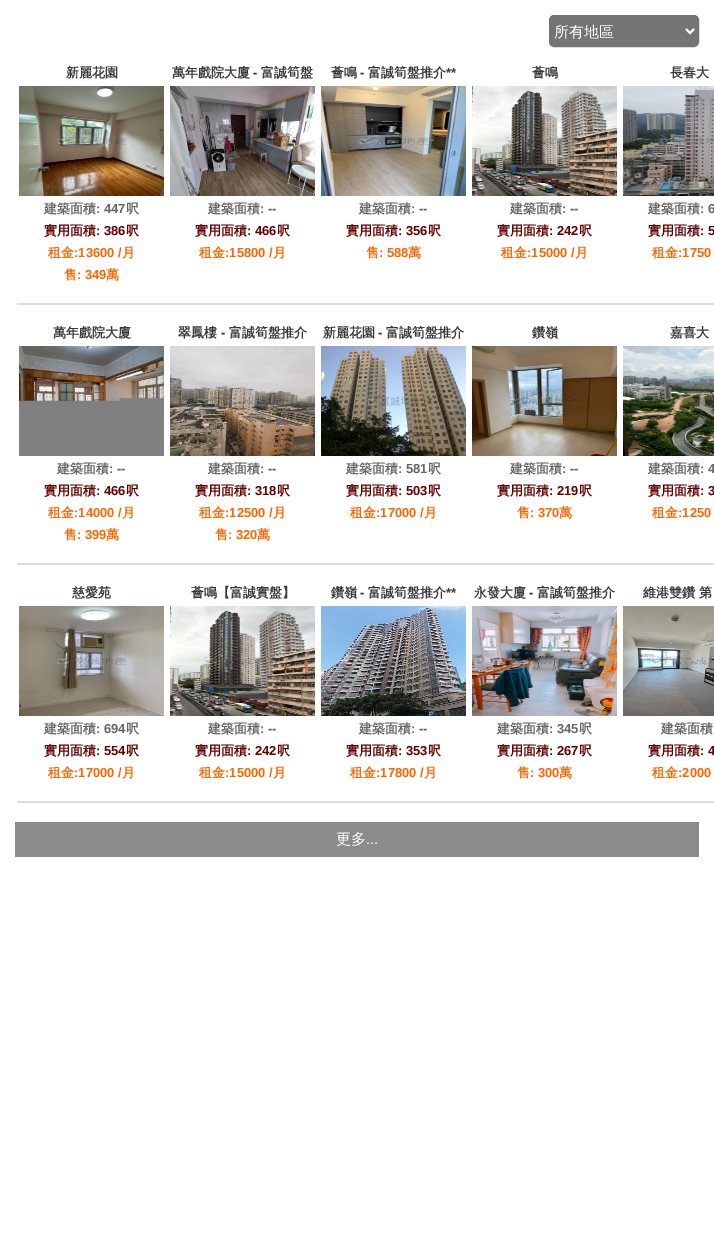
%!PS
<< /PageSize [714 1253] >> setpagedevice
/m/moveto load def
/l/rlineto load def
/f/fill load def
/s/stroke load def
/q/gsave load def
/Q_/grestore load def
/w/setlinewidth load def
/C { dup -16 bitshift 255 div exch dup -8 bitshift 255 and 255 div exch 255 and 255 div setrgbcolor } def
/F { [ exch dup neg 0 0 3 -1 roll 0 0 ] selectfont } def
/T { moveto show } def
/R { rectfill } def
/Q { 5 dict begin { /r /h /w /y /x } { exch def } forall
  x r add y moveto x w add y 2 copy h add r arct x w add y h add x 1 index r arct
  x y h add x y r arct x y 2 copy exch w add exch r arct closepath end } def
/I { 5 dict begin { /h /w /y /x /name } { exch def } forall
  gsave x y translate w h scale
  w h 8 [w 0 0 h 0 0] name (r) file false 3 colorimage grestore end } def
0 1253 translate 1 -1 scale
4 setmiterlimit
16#FFFFFF C
0 0 714 1253 R
16#747474 C
549.5 15.5 149 31 4.5 Q q f Q_
16#767676 C
s
16#FFFFFF C
2 w
686 29 m 4 4 l 4 -4 l s
/WenQuanYiZenHei-Medium 15 F
(所有地區) 554 37 T
/WenQuanYiZenHei-Bold 13 F
16#393939 C
(新麗花園) 66 77 T
(1.rgb) 19 86 145 110 I
16#666666 C
(建築面積) 44 213 T
/LiberationSans-Bold 13 F
(: 447) 96 213 T
/WenQuanYiZenHei-Bold 13 F
(呎) 126 213 T
16#660000 C
(實用面積) 44 235 T
/LiberationSans-Bold 13 F
(: 386) 96 235 T
/WenQuanYiZenHei-Bold 13 F
(呎) 126 235 T
16#FF6600 C
(租金) 48 257 T
/LiberationSans-Bold 13 F
(:13600 /) 74 257 T
/WenQuanYiZenHei-Bold 13 F
(月) 122 257 T
(售) 64 279 T
/LiberationSans-Bold 13 F
(: 349) 77 279 T
/WenQuanYiZenHei-Bold 13 F
(萬) 106 279 T
16#393939 C
(萬年戲院大廈) 172 77 T
/LiberationSans-Bold 13 F
(-) 253 77 T
/WenQuanYiZenHei-Bold 13 F
(富誠筍盤) 261 77 T
(2.rgb) 170 86 145 110 I
16#666666 C
(建築面積) 208 213 T
/LiberationSans-Bold 13 F
(: --) 260 213 T
/WenQuanYiZenHei-Bold 13 F
16#660000 C
(實用面積) 195 235 T
/LiberationSans-Bold 13 F
(: 466) 247 235 T
/WenQuanYiZenHei-Bold 13 F
(呎) 277 235 T
16#FF6600 C
(租金) 199 257 T
/LiberationSans-Bold 13 F
(:15800 /) 225 257 T
/WenQuanYiZenHei-Bold 13 F
(月) 273 257 T
16#393939 C
(薈鳴) 331 77 T
(富誠筍盤推介) 368 77 T
/LiberationSans-Bold 13 F
(**) 446 77 T
(-) 360 77 T
(3.rgb) 321 86 145 110 I
/WenQuanYiZenHei-Bold 13 F
16#666666 C
(建築面積) 359 213 T
/LiberationSans-Bold 13 F
(: --) 411 213 T
/WenQuanYiZenHei-Bold 13 F
16#660000 C
(實用面積) 346 235 T
/LiberationSans-Bold 13 F
(: 356) 398 235 T
/WenQuanYiZenHei-Bold 13 F
(呎) 428 235 T
16#FF6600 C
(售) 366 257 T
/LiberationSans-Bold 13 F
(: 588) 379 257 T
/WenQuanYiZenHei-Bold 13 F
(萬) 408 257 T
16#393939 C
(薈鳴) 532 77 T
(4.rgb) 472 86 145 110 I
16#666666 C
(建築面積) 510 213 T
/LiberationSans-Bold 13 F
(: --) 562 213 T
/WenQuanYiZenHei-Bold 13 F
16#660000 C
(實用面積) 497 235 T
/LiberationSans-Bold 13 F
(: 242) 549 235 T
/WenQuanYiZenHei-Bold 13 F
(呎) 579 235 T
16#FF6600 C
(租金) 501 257 T
/LiberationSans-Bold 13 F
(:15000 /) 527 257 T
/WenQuanYiZenHei-Bold 13 F
(月) 575 257 T
16#393939 C
(長春大) 670 77 T
(5.rgb) 623 86 91 110 I
16#666666 C
(建築面積) 648 213 T
/LiberationSans-Bold 13 F
(: 6) 700 213 T
/WenQuanYiZenHei-Bold 13 F
16#660000 C
(實用面積) 648 235 T
/LiberationSans-Bold 13 F
(: 5) 700 235 T
/WenQuanYiZenHei-Bold 13 F
16#FF6600 C
(租金) 652 257 T
/LiberationSans-Bold 13 F
(:1750) 678 257 T
16#DBDBDB C
17 303 697 2 R
/WenQuanYiZenHei-Bold 13 F
16#393939 C
(萬年戲院大廈) 53 337 T
(6.rgb) 19 346 145 110 I
16#666666 C
(建築面積) 57 473 T
/LiberationSans-Bold 13 F
(: --) 109 473 T
/WenQuanYiZenHei-Bold 13 F
16#660000 C
(實用面積) 44 495 T
/LiberationSans-Bold 13 F
(: 466) 96 495 T
/WenQuanYiZenHei-Bold 13 F
(呎) 126 495 T
16#FF6600 C
(租金) 48 517 T
/LiberationSans-Bold 13 F
(:14000 /) 74 517 T
/WenQuanYiZenHei-Bold 13 F
(月) 122 517 T
(售) 64 539 T
/LiberationSans-Bold 13 F
(: 399) 77 539 T
/WenQuanYiZenHei-Bold 13 F
(萬) 106 539 T
16#393939 C
(翠鳳樓) 178 337 T
/LiberationSans-Bold 13 F
(-) 221 337 T
/WenQuanYiZenHei-Bold 13 F
(富誠筍盤推介) 229 337 T
(7.rgb) 170 346 145 110 I
16#666666 C
(建築面積) 208 473 T
/LiberationSans-Bold 13 F
(: --) 260 473 T
/WenQuanYiZenHei-Bold 13 F
16#660000 C
(實用面積) 195 495 T
/LiberationSans-Bold 13 F
(: 318) 247 495 T
/WenQuanYiZenHei-Bold 13 F
(呎) 277 495 T
16#FF6600 C
(租金) 199 517 T
/LiberationSans-Bold 13 F
(:12500 /) 225 517 T
/WenQuanYiZenHei-Bold 13 F
(月) 273 517 T
(售) 215 539 T
/LiberationSans-Bold 13 F
(: 320) 228 539 T
/WenQuanYiZenHei-Bold 13 F
(萬) 257 539 T
16#393939 C
(新麗花園) 323 337 T
/LiberationSans-Bold 13 F
(-) 378 337 T
/WenQuanYiZenHei-Bold 13 F
(富誠筍盤推介) 386 337 T
(8.rgb) 321 346 145 110 I
16#666666 C
(建築面積) 346 473 T
/LiberationSans-Bold 13 F
(: 581) 398 473 T
/WenQuanYiZenHei-Bold 13 F
(呎) 428 473 T
16#660000 C
(實用面積) 346 495 T
/LiberationSans-Bold 13 F
(: 503) 398 495 T
/WenQuanYiZenHei-Bold 13 F
(呎) 428 495 T
16#FF6600 C
(租金) 350 517 T
/LiberationSans-Bold 13 F
(:17000 /) 376 517 T
/WenQuanYiZenHei-Bold 13 F
(月) 424 517 T
16#393939 C
(鑽嶺) 532 337 T
(9.rgb) 472 346 145 110 I
16#666666 C
(建築面積) 510 473 T
/LiberationSans-Bold 13 F
(: --) 562 473 T
/WenQuanYiZenHei-Bold 13 F
16#660000 C
(實用面積) 497 495 T
/LiberationSans-Bold 13 F
(: 219) 549 495 T
/WenQuanYiZenHei-Bold 13 F
(呎) 579 495 T
16#FF6600 C
(售) 517 517 T
/LiberationSans-Bold 13 F
(: 370) 530 517 T
/WenQuanYiZenHei-Bold 13 F
(萬) 559 517 T
16#393939 C
(嘉喜大) 670 337 T
(10.rgb) 623 346 91 110 I
16#666666 C
(建築面積) 648 473 T
/LiberationSans-Bold 13 F
(: 4) 700 473 T
/WenQuanYiZenHei-Bold 13 F
16#660000 C
(實用面積) 648 495 T
/LiberationSans-Bold 13 F
(: 3) 700 495 T
/WenQuanYiZenHei-Bold 13 F
16#FF6600 C
(租金) 652 517 T
/LiberationSans-Bold 13 F
(:1250) 678 517 T
16#DBDBDB C
17 563 697 2 R
/WenQuanYiZenHei-Bold 13 F
16#393939 C
(慈愛苑) 72 597 T
(11.rgb) 19 606 145 110 I
16#666666 C
(建築面積) 44 733 T
/LiberationSans-Bold 13 F
(: 694) 96 733 T
/WenQuanYiZenHei-Bold 13 F
(呎) 126 733 T
16#660000 C
(實用面積) 44 755 T
/LiberationSans-Bold 13 F
(: 554) 96 755 T
/WenQuanYiZenHei-Bold 13 F
(呎) 126 755 T
16#FF6600 C
(租金) 48 777 T
/LiberationSans-Bold 13 F
(:17000 /) 74 777 T
/WenQuanYiZenHei-Bold 13 F
(月) 122 777 T
16#393939 C
(薈鳴【富誠實盤】) 191 597 T
(12.rgb) 170 606 145 110 I
16#666666 C
(建築面積) 208 733 T
/LiberationSans-Bold 13 F
(: --) 260 733 T
/WenQuanYiZenHei-Bold 13 F
16#660000 C
(實用面積) 195 755 T
/LiberationSans-Bold 13 F
(: 242) 247 755 T
/WenQuanYiZenHei-Bold 13 F
(呎) 277 755 T
16#FF6600 C
(租金) 199 777 T
/LiberationSans-Bold 13 F
(:15000 /) 225 777 T
/WenQuanYiZenHei-Bold 13 F
(月) 273 777 T
16#393939 C
(鑽嶺) 331 597 T
(富誠筍盤推介) 368 597 T
/LiberationSans-Bold 13 F
(**) 446 597 T
(-) 360 597 T
(13.rgb) 321 606 145 110 I
/WenQuanYiZenHei-Bold 13 F
16#666666 C
(建築面積) 359 733 T
/LiberationSans-Bold 13 F
(: --) 411 733 T
/WenQuanYiZenHei-Bold 13 F
16#660000 C
(實用面積) 346 755 T
/LiberationSans-Bold 13 F
(: 353) 398 755 T
/WenQuanYiZenHei-Bold 13 F
(呎) 428 755 T
16#FF6600 C
(租金) 350 777 T
/LiberationSans-Bold 13 F
(:17800 /) 376 777 T
/WenQuanYiZenHei-Bold 13 F
(月) 424 777 T
16#393939 C
(永發大廈) 474 597 T
/LiberationSans-Bold 13 F
(-) 529 597 T
/WenQuanYiZenHei-Bold 13 F
(富誠筍盤推介) 537 597 T
(14.rgb) 472 606 145 110 I
16#666666 C
(建築面積) 497 733 T
/LiberationSans-Bold 13 F
(: 345) 549 733 T
/WenQuanYiZenHei-Bold 13 F
(呎) 579 733 T
16#660000 C
(實用面積) 497 755 T
/LiberationSans-Bold 13 F
(: 267) 549 755 T
/WenQuanYiZenHei-Bold 13 F
(呎) 579 755 T
16#FF6600 C
(售) 517 777 T
/LiberationSans-Bold 13 F
(: 300) 530 777 T
/WenQuanYiZenHei-Bold 13 F
(萬) 559 777 T
16#393939 C
(維港雙鑽 第) 643 597 T
(15.rgb) 623 606 91 110 I
16#666666 C
(建築面積) 661 733 T
16#660000 C
(實用面積) 648 755 T
/LiberationSans-Bold 13 F
(: 4) 700 755 T
/WenQuanYiZenHei-Bold 13 F
16#FF6600 C
(租金) 652 777 T
/LiberationSans-Bold 13 F
(:2000) 678 777 T
16#DBDBDB C
17 801 697 2 R
16#8B8B8B C
15 822 684 35 R
/WenQuanYiZenHei-Medium 15 F
16#FFFFFF C
(更多) 336 844 T
/LiberationSans-Regular 15 F
(...) 366 844 T
showpage
